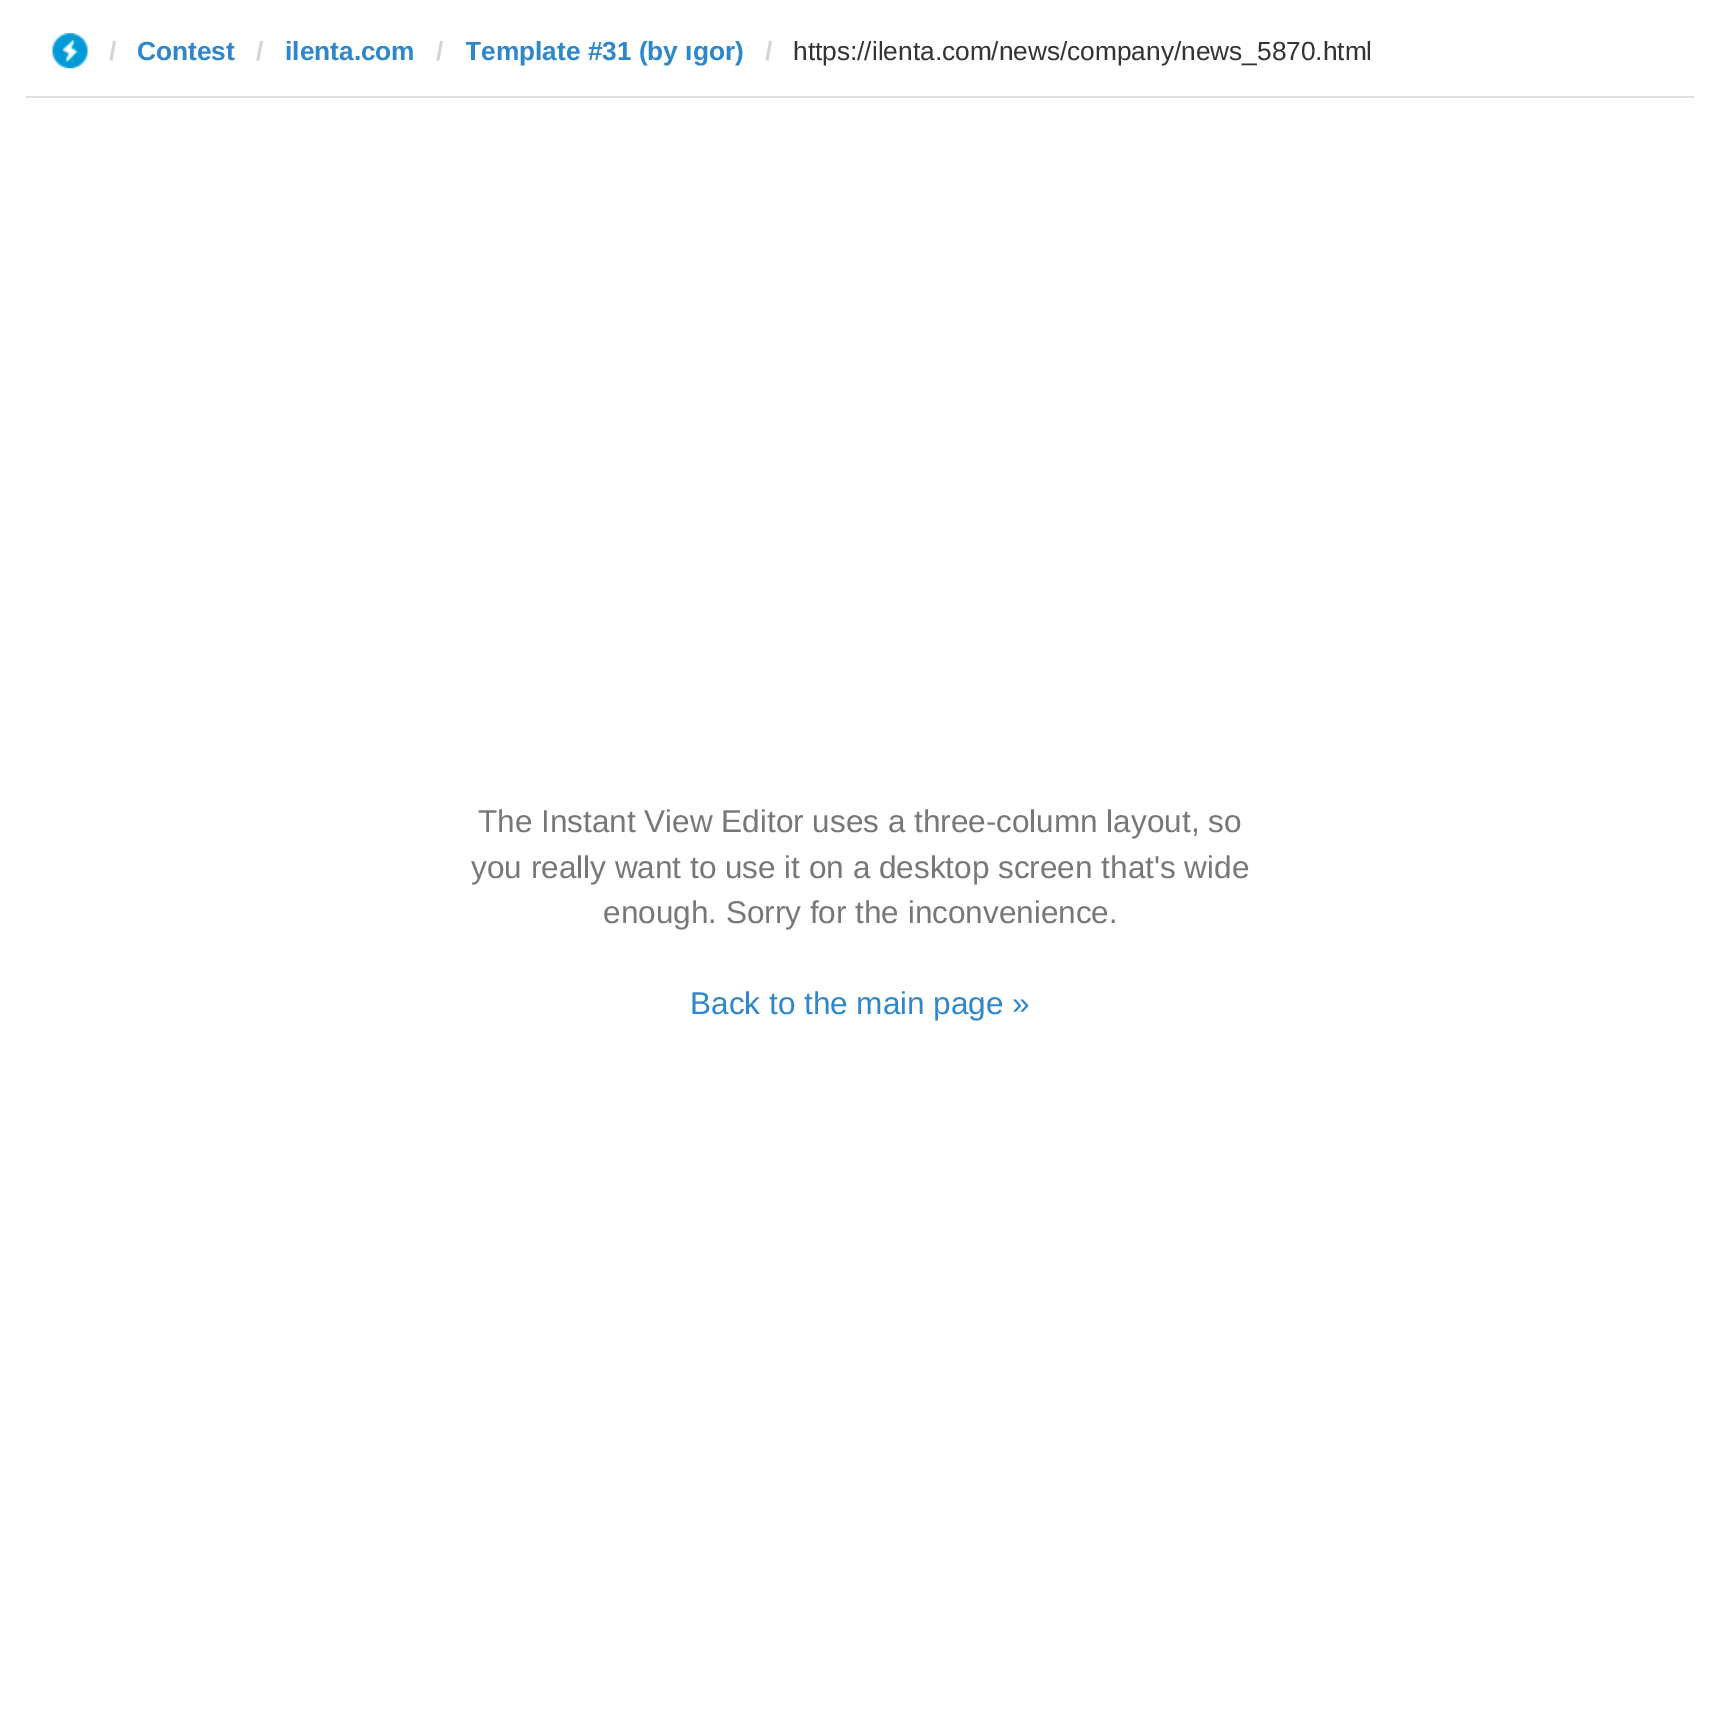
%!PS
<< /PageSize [1720 1729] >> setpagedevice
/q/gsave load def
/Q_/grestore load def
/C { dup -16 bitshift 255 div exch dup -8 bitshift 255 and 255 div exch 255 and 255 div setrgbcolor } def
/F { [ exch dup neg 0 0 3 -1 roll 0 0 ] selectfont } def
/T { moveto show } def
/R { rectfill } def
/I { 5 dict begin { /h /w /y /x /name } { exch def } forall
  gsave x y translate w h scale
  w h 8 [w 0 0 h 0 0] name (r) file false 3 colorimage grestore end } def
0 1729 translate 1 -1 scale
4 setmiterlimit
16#FFFFFF C
0 0 1720 1729 R
16#E0E0E0 C
26 96 1668 2 R
(1.rgb) 52 33 36 36 I
/LiberationSans-Bold 26.25 F
16#D4D4D4 C
(/) 109 60 T
16#2E87CA C
(Contest) 137 60 T
16#D4D4D4 C
(/) 256 60 T
16#2E87CA C
(ilenta.com) 285 60 T
16#D4D4D4 C
(/) 436 60 T
q
466 33 278 35 rectclip
16#2E87CA C
(Template #31 \(by ıgor\)) 465 60 T
Q_
(/) 765 60 T
/LiberationSans-Regular 26.25 F
16#333333 C
(https://ilenta.com/news/company/news_5870.html) 793 60 T
/LiberationSans-Regular 31.5 F
16#777777 C
(The Instant View Editor uses a three-column layout, so) 478 832 T
(you really want to use it on a desktop screen that's wide) 471 878 T
(enough. Sorry for the inconvenience.) 603 923 T
16#2E87CA C
(Back to the main page ») 690 1014 T
showpage
